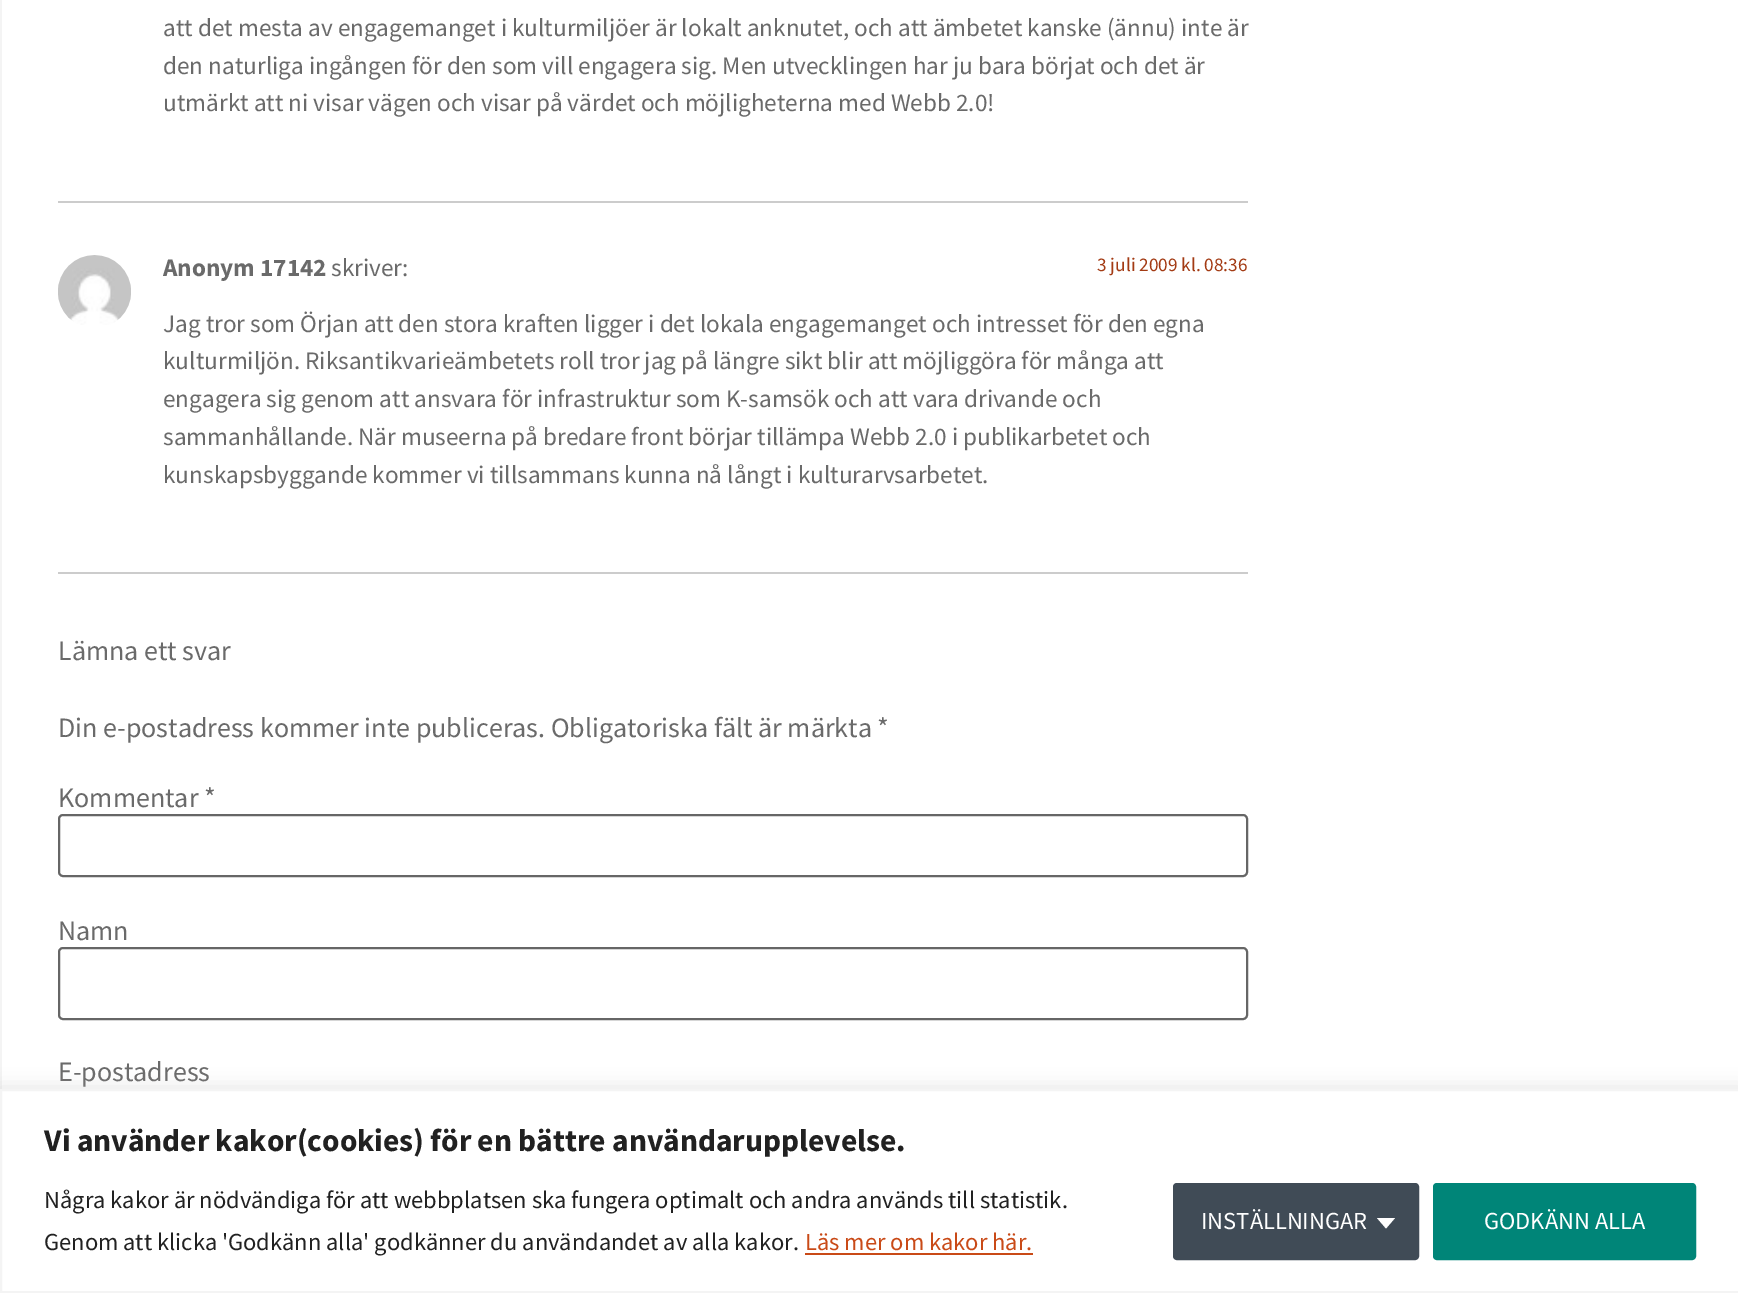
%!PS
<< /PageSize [1738 1293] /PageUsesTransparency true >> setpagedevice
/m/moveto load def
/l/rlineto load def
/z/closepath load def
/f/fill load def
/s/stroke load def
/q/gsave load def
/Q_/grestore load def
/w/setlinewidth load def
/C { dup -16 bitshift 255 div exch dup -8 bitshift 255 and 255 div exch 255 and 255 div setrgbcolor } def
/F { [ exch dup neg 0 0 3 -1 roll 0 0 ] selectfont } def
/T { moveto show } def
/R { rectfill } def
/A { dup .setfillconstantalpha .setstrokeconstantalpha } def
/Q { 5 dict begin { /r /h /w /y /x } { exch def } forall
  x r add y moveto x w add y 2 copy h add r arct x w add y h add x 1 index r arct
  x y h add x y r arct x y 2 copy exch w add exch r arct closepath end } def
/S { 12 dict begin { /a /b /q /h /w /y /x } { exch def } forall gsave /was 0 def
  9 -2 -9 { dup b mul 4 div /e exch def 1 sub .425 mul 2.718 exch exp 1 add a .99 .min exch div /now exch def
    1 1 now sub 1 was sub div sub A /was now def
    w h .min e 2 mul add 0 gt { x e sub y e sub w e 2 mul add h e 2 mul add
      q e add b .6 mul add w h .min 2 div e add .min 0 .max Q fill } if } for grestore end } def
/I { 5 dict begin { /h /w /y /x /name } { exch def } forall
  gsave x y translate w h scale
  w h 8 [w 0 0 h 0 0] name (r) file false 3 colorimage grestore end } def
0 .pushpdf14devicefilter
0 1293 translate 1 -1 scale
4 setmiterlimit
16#F4F4F4 C
0 0 1738 1293 R
16#FFFFFF C
2 0 1736 1089 R
16#CCCCCC C
58 201 1190 2 R
/SourceSansPro-Regular 25.2 F
16#6A6A6A C
(att det mesta av engagemanget i kulturmiljöer är lokalt anknutet, och att ämbetet kanske \(ännu\) inte är) 163 36 T
(den naturliga ingången för den som vill engagera sig. Men utvecklingen har ju bara börjat och det är) 163 74 T
(utmärkt att ni visar vägen och visar på värdet och möjligheterna med Webb 2.0!) 163 111 T
16#CCCCCC C
58 572 1190 2 R
(1.rgb) 58 255 73 70 I
/SourceSansPro-Bold 25.2 F
16#6A6A6A C
(Anonym 17142) 163 276 T
/SourceSansPro-Regular 25.2 F
(skriver:) 331 276 T
/SourceSansPro-Regular 19.25 F
16#A33B14 C
(3 juli 2009 kl. 08:36) 1097 271 T
/SourceSansPro-Regular 25.2 F
16#6A6A6A C
(Jag tror som Örjan att den stora kraften ligger i det lokala engagemanget och intresset för den egna) 163 332 T
(kulturmiljön. Riksantikvarieämbetets roll tror jag på längre sikt blir att möjliggöra för många att) 163 369 T
(engagera sig genom att ansvara för infrastruktur som K-samsök och att vara drivande och) 163 407 T
(sammanhållande. När museerna på bredare front börjar tillämpa Webb 2.0 i publikarbetet och) 163 445 T
(kunskapsbyggande kommer vi tillsammans kunna nå långt i kulturarvsarbetet.) 163 483 T
/SourceSansPro-Regular 28 F
(Lämna ett svar) 58 660 T
(Din e-postadress kommer inte publiceras. Obligatoriska fält är märkta *) 58 737 T
(Kommentar *) 58 807 T
16#666666 C
2 w
59 815 1188 61 4 Q s
16#6A6A6A C
(Namn) 58 940 T
16#666666 C
59 948 1188 71 4 Q s
16#6A6A6A C
(E-postadress) 58 1081 T
16#ACABAB C
0 1087 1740 205 0 9 .3 S
16#FFFFFF C
1 1090 m 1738 0 l 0 202 l -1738 0 l z q f Q_
16#F4F4F4 C
s
/SourceSansPro-Bold 31.5 F
16#212121 C
(Vi använder kakor\(cookies\) för en bättre användarupplevelse.) 44 1151 T
/SourceSansPro-Regular 24.5 F
(Några kakor är nödvändiga för att webbplatsen ska fungera optimalt och andra används till statistik.) 44 1208 T
(Genom att klicka 'Godkänn alla' godkänner du användandet av alla kakor.) 44 1250 T
16#C94A17 C
(Läs mer om kakor här.) 805 1250 T
805 1253 228 2 R
16#404B56 C
1175 1185 242 73 2 Q q f Q_
4 w
s
16#FFFFFF C
(INSTÄLLNINGAR) 1201 1229 T
1377 1218 m 18 0 l -9 10.5 l z f
16#008578 C
1435 1185 259 73 2 Q q f Q_
s
16#FFFFFF C
(GODKÄNN ALLA) 1484 1229 T
.poppdf14devicefilter showpage
